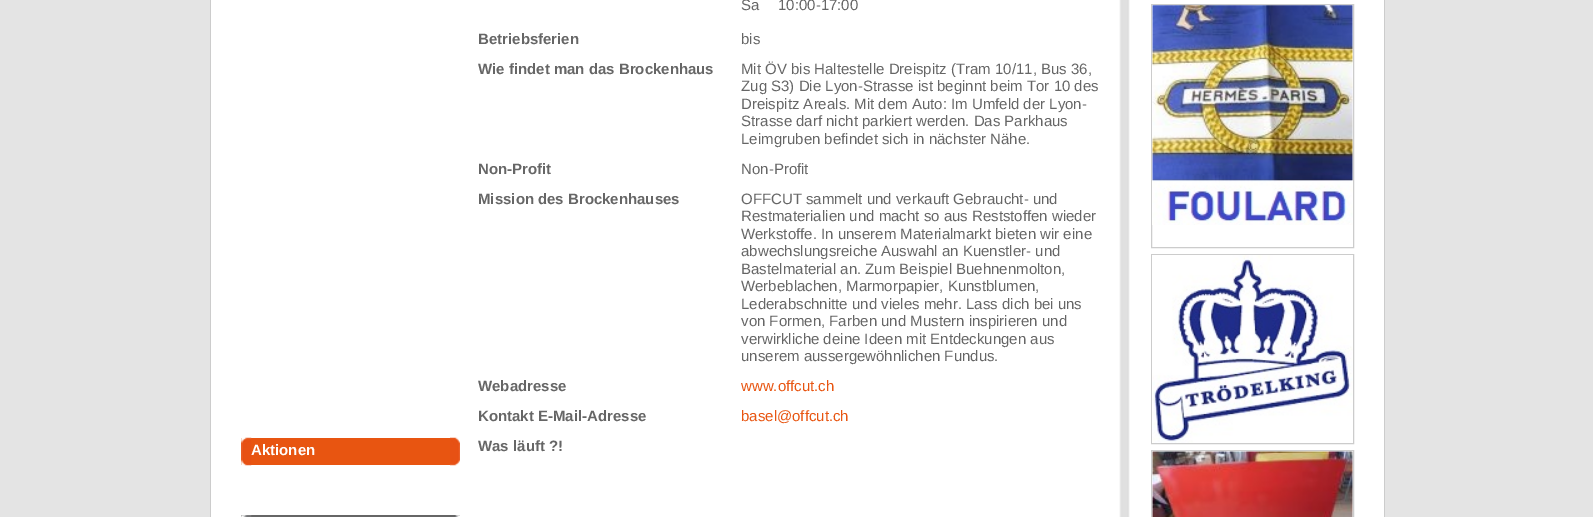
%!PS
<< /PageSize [1593 517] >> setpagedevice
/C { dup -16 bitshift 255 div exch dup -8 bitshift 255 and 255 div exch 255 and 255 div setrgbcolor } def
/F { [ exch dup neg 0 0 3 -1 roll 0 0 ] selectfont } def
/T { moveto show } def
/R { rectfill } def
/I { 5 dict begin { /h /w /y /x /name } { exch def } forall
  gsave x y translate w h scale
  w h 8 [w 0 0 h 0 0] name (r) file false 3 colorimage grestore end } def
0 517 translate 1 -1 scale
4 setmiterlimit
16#E4E4E4 C
0 0 1593 517 R
16#FFFFFF C
211 0 1173 517 R
16#CCCCCC C
1384 0 1 517 R
210 0 1 517 R
/LiberationSans-Regular 15 F
16#666666 C
(Sa) 741 10 T
(10:00-17:00) 778 10 T
/LiberationSans-Bold 15 F
(Betriebsferien) 478 44 T
/LiberationSans-Regular 15 F
(bis) 741 44 T
/LiberationSans-Bold 15 F
(Wie findet man das Brockenhaus) 478 74 T
/LiberationSans-Regular 15 F
(Mit ÖV bis Haltestelle Dreispitz \(Tram 10/11, Bus 36,) 741 74 T
(Zug S3\) Die Lyon-Strasse ist beginnt beim Tor 10 des) 741 91 T
(Dreispitz Areals. Mit dem Auto: Im Umfeld der Lyon-) 741 109 T
(Strasse darf nicht parkiert werden. Das Parkhaus) 741 126 T
(Leimgruben befindet sich in nächster Nähe.) 741 144 T
/LiberationSans-Bold 15 F
(Non-Profit) 478 174 T
/LiberationSans-Regular 15 F
(Non-Profit) 741 174 T
/LiberationSans-Bold 15 F
(Mission des Brockenhauses) 478 204 T
/LiberationSans-Regular 15 F
(OFFCUT sammelt und verkauft Gebraucht- und) 741 204 T
(Restmaterialien und macht so aus Reststoffen wieder) 741 221 T
(Werkstoffe. In unserem Materialmarkt bieten wir eine) 741 239 T
(abwechslungsreiche Auswahl an Kuenstler- und) 741 256 T
(Bastelmaterial an. Zum Beispiel Buehnenmolton,) 741 274 T
(Werbeblachen, Marmorpapier, Kunstblumen,) 741 291 T
(Lederabschnitte und vieles mehr. Lass dich bei uns) 741 309 T
(von Formen, Farben und Mustern inspirieren und) 741 326 T
(verwirkliche deine Ideen mit Entdeckungen aus) 741 344 T
(unserem aussergewöhnlichen Fundus.) 741 361 T
/LiberationSans-Bold 15 F
(Webadresse) 478 391 T
/LiberationSans-Regular 15 F
16#E85511 C
(www.offcut.ch) 741 391 T
/LiberationSans-Bold 15 F
16#666666 C
(Kontakt E-Mail-Adresse) 478 421 T
/LiberationSans-Regular 15 F
16#E85511 C
(basel@offcut.ch) 741 421 T
241 438 209 27 R
(1.rgb) 241 437 11 29 I
/LiberationSans-Bold 15 F
16#FFFFFF C
(Aktionen) 251 455 T
(2.rgb) 450 437 10 29 I
16#666666 C
(Was läuft ?!) 478 451 T
241 515 219 2 R
(3.rgb) 241 515 11 2 I
(4.rgb) 455 515 5 2 I
(5.rgb) 1119 0 11 517 I
16#CCCCCC C
1151.5 4.5 202 243 rectstroke
(6.rgb) 1152 5 201 220 I
1151.5 254.5 202 189 rectstroke
(7.rgb) 1152 255 201 188 I
1151.5 450.5 202 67 rectstroke
(8.rgb) 1152 451 201 66 I
showpage
